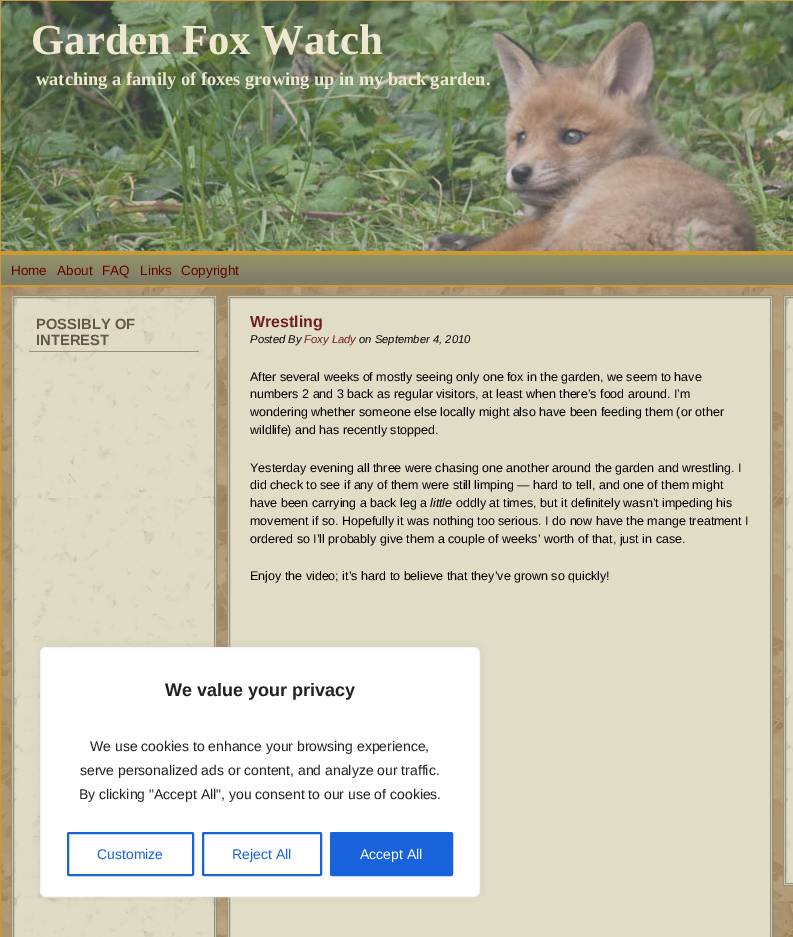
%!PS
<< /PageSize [793 937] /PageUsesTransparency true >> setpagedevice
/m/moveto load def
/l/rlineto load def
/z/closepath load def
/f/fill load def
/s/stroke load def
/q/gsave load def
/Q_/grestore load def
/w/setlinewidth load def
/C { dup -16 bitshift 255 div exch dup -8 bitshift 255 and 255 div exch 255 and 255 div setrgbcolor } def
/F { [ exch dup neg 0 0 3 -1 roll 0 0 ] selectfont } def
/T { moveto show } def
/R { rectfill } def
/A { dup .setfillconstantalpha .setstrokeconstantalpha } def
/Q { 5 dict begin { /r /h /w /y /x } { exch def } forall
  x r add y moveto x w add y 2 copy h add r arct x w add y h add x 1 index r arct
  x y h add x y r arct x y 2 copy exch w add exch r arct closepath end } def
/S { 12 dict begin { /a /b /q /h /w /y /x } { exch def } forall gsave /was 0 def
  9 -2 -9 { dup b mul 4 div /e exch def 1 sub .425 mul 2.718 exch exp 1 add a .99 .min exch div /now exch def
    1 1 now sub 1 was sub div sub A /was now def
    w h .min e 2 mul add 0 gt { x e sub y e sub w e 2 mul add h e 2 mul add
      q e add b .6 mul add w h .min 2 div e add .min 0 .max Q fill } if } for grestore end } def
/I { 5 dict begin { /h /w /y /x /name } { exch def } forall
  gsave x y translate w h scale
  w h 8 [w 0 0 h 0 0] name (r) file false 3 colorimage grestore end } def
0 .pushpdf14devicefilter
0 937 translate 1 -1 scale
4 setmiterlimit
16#FFFFFF C
0 0 793 937 R
(1.rgb) 1 287 792 650 I
16#CC9933 C
.5 .5 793 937 rectstroke
(2.rgb) 1 1 792 250 I
/LiberationSerif-Bold 42.75 F
16#EEE8D1 C
(Garden Fox Watch) 31 54 T
/LiberationSerif-Bold 18.4 F
(watching a family of foxes growing up in my back garden.) 36 85 T
16#CC9933 C
1 251 792 4 R
(3.rgb) 1 255 792 30 I
1 285 792 2 R
/LiberationSans-Regular 13.5 F
16#660000 C
(Home) 11 275 T
(About) 57 275 T
(FAQ) 102 275 T
(Links) 140 275 T
(Copyright) 181 275 T
(4.rgb) 12 296 204 641 I
16#94927B C
11.5 295.5 205 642 rectstroke
13.5 297.5 201 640 rectstroke
29 351 170 1 R
/LiberationSans-Bold 14.75 F
16#61574A C
(POSSIBLY OF) 36 329 T
(INTEREST) 36 345 T
16#E0DCC5 C
227.5 295.5 m 545 0 l 0 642 l -545 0 l z q f Q_
16#94927B C
s
229.5 297.5 541 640 rectstroke
/LiberationSans-Bold 16 F
16#711F1F C
(Wrestling) 250 327 T
/LiberationSans-Italic 11.25 F
16#000000 C
(Posted By) 250 343 T
16#711F1F C
(Foxy Lady) 304 343 T
16#000000 C
(on September 4, 2010) 359 343 T
/LiberationSans-Regular 12.5 F
(After several weeks of mostly seeing only one fox in the garden, we seem to have) 250 381 T
(numbers 2 and 3 back as regular visitors, at least when there’s food around. I’m) 250 398 T
(wondering whether someone else locally might also have been feeding them \(or other) 250 416 T
(wildlife\) and has recently stopped.) 250 434 T
(Yesterday evening all three were chasing one another around the garden and wrestling. I) 250 472 T
(did check to see if any of them were still limping — hard to tell, and one of them might) 250 489 T
(have been carrying a back leg a) 250 507 T
/LiberationSans-Italic 12.5 F
(little) 430 507 T
/LiberationSans-Regular 12.5 F
(oddly at times, but it definitely wasn’t impeding his) 456 507 T
(movement if so. Hopefully it was nothing too serious. I do now have the mange treatment I) 250 525 T
(ordered so I’ll probably give them a couple of weeks’ worth of that, just in case.) 250 543 T
(Enjoy the video; it’s hard to believe that they’ve grown so quickly!) 250 580 T
16#E0DCC5 C
784 883 9 2 R
(5.rgb) 784 296 9 587 I
16#94927B C
783.5 295.5 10 590 rectstroke
785.5 297.5 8 586 rectstroke
16#ACABAB C
40 646 440 250 6 5 .3 S
16#FFFFFF C
40.5 647.5 439 249 5.5 Q q f Q_
16#F4F4F4 C
s
/LiberationSans-Bold 18 F
16#212121 C
(We value your privacy) 165 696 T
/LiberationSans-Regular 14 F
(We use cookies to enhance your browsing experience,) 90 751 T
(serve personalized ads or content, and analyze our traffic.) 80 775 T
(By clicking "Accept All", you consent to our use of cookies.) 79 799 T
16#1863DC C
2 w
68 833 125 42 1 Q s
(Customize) 97 859 T
203 833 118 42 1 Q s
(Reject All) 232 859 T
331 833 121 42 1 Q q f Q_
s
16#FFFFFF C
(Accept All) 360 859 T
.poppdf14devicefilter showpage
